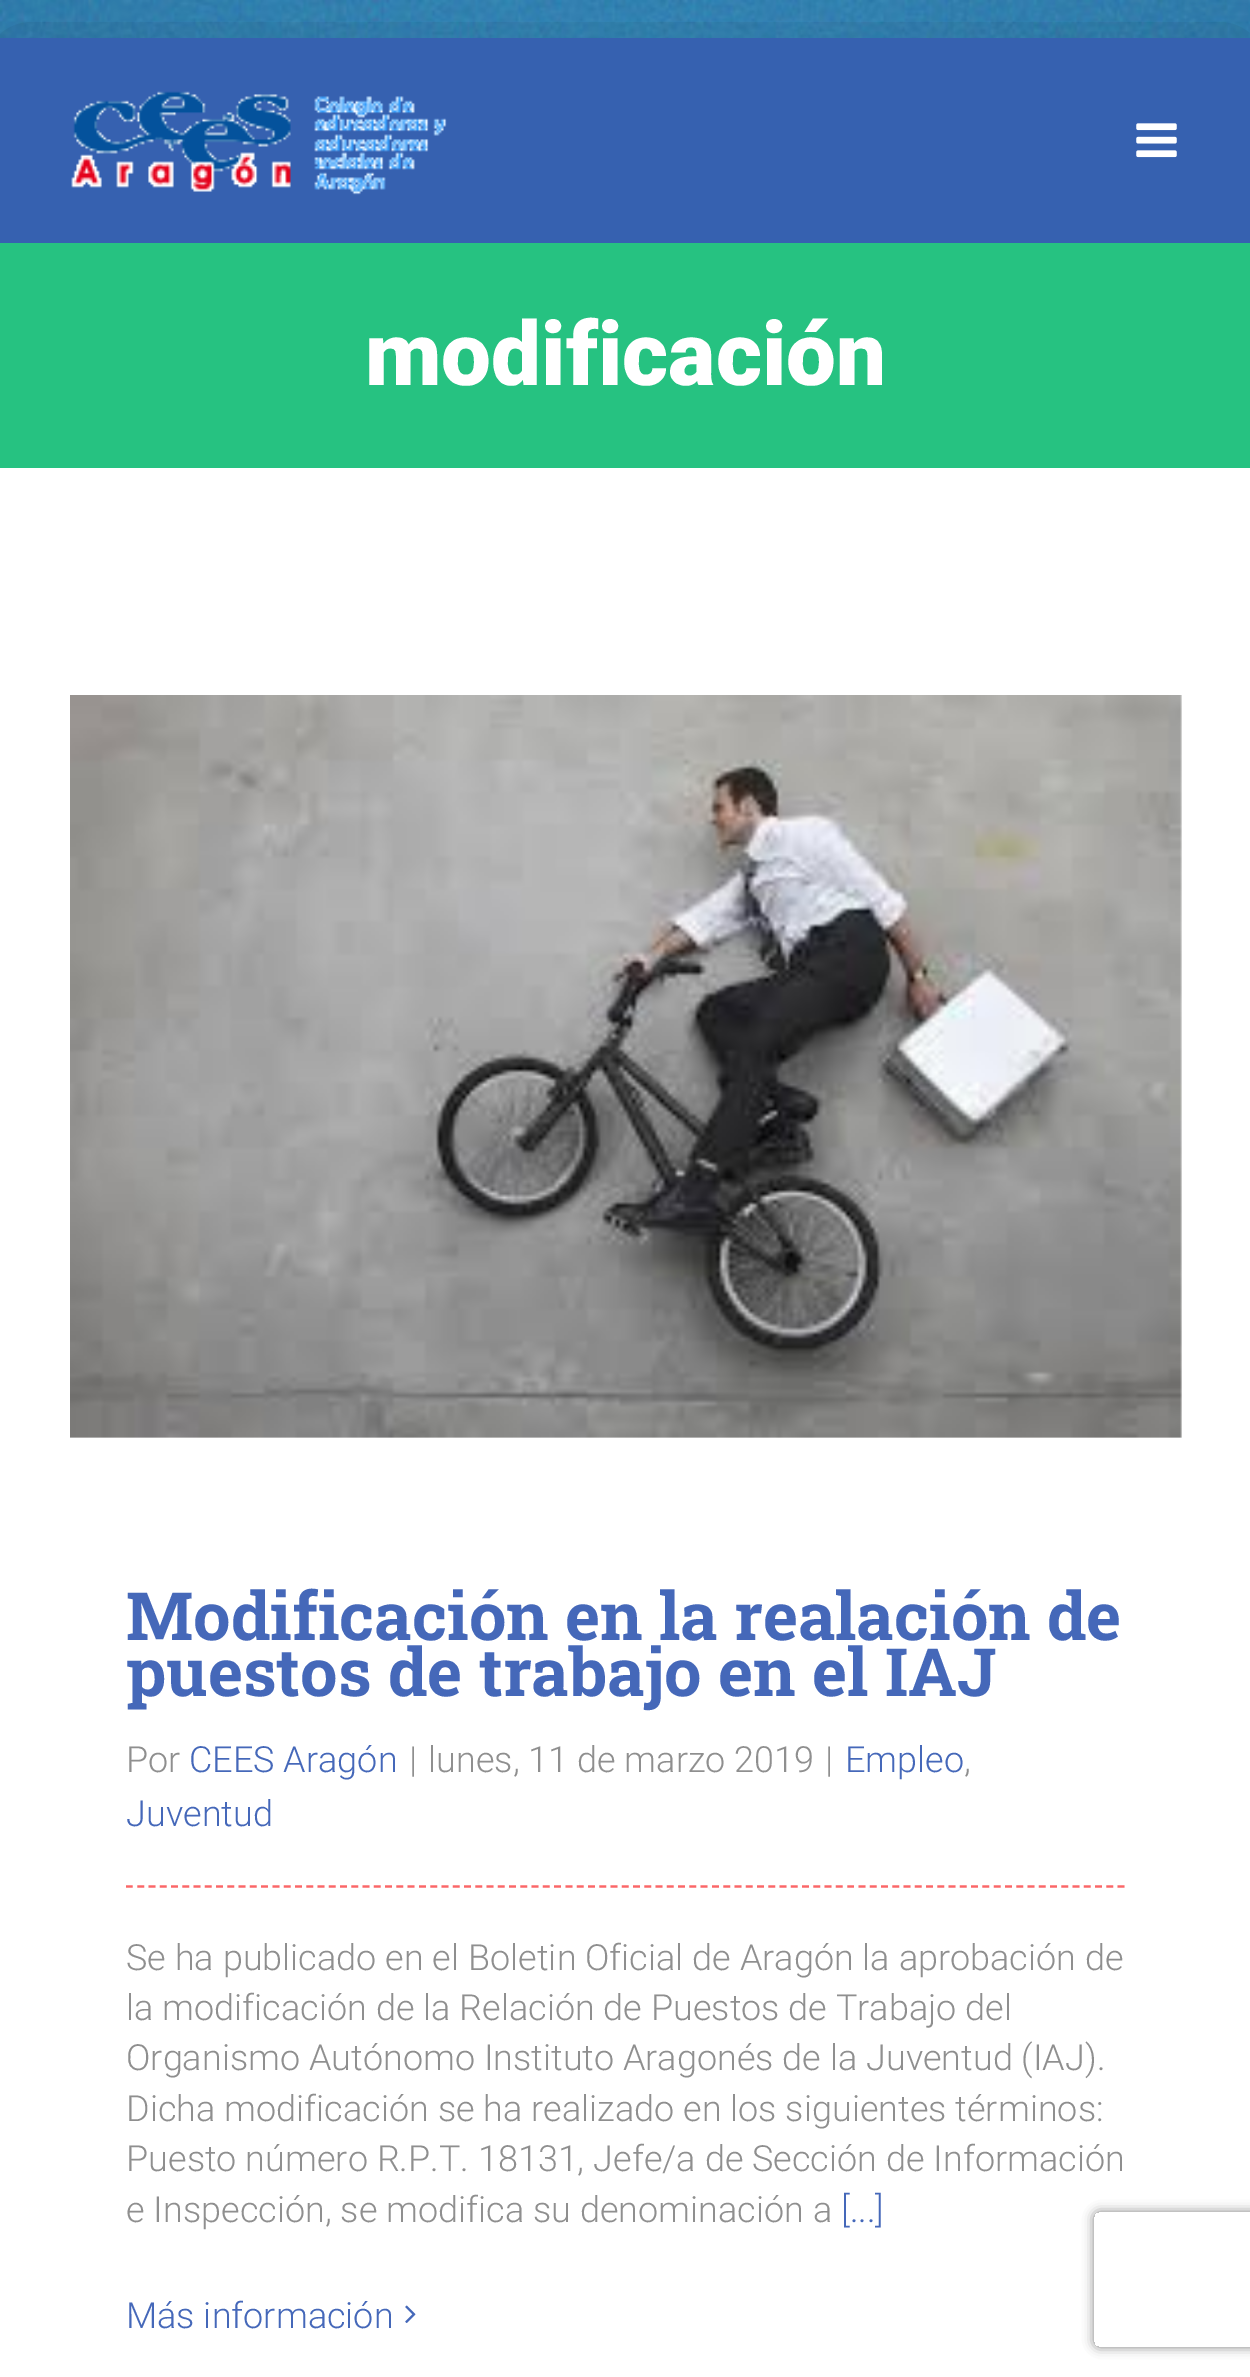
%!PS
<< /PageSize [1250 2377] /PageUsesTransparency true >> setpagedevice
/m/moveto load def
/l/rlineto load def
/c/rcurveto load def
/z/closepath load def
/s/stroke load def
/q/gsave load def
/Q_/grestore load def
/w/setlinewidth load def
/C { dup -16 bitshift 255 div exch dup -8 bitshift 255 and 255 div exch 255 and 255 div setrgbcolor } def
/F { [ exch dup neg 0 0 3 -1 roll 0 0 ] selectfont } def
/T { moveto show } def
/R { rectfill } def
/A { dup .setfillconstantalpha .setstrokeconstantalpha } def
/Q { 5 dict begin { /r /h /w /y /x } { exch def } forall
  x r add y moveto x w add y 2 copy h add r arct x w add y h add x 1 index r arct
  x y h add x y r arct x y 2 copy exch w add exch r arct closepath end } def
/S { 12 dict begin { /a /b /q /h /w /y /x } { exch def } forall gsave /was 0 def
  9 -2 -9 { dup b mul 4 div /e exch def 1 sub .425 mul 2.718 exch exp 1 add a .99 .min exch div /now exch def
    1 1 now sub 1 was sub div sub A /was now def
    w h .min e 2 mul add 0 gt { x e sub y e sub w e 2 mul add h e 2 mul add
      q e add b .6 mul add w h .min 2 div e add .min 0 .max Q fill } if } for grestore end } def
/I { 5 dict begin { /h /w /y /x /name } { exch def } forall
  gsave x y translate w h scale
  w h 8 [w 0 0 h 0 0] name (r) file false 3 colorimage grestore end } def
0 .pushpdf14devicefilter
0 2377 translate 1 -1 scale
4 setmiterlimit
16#FFFFFF C
0 0 1250 2377 R
(1.rgb) 0 0 1250 38 I
16#000000 C
-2 36 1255 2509 0 56 .22 S
16#3661B0 C
0 38 1250 205 R
(2.rgb) 71 91 376 104 I
(3.rgb) 1136 123 41 35 I
16#26C281 C
0 243 1250 225 R
/Roboto-Black 88.75 F
16#FFFFFF C
(modificación) 365 385 T
0 468 1250 1909 R
(4.rgb) 70 695 1112 743 I
/RobotoSlab-Bold 66.6 F
16#4568B9 C
(Modificación en la realación de) 126 1640 T
(puestos de trabajo en el IAJ) 126 1696 T
/Roboto-Light 36 F
16#8F8F8F C
(Por) 126 1772 T
16#4568B9 C
(CEES Aragón) 189 1772 T
16#8F8F8F C
(|) 409 1772 T
(lunes, 11 de marzo 2019) 428 1772 T
(|) 825 1772 T
16#4568B9 C
(Empleo) 845 1772 T
16#8F8F8F C
(,) 964 1772 T
16#4568B9 C
(Juventud) 126 1826 T
16#FB6667 C
2.2 w
[6.75 4.52] 0 setdash
126 1886.5 m 999 0 l s
16#8F8F8F C
(Se ha publicado en el Boletin Oficial de Aragón la aprobación de) 126 1970 T
(la modificación de la Relación de Puestos de Trabajo del) 126 2020 T
(Organismo Autónomo Instituto Aragonés de la Juventud \(IAJ\).) 126 2070 T
(Dicha modificación se ha realizado en los siguientes términos:) 126 2121 T
(Puesto número R.P.T. 18131, Jefe/a de Sección de Información) 126 2171 T
(e Inspección, se modifica su denominación a) 126 2222 T
16#4568B9 C
([...]) 841 2222 T
(Más información) 126 2328 T
(5.rgb) 405 2305 11 18 I
q
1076 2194 m 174 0 l 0 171 l -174 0 l z 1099 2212 m 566 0 l 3 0 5 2 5 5 c 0 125 l 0 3 -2 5 -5 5 c -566 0 l -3 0 -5 -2 -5 -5 c 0 -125 l 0 -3 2 -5 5 -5 c z eoclip newpath
16#808080 C
1094 2212 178 135 5 5.5 1 S
Q_
.poppdf14devicefilter showpage
